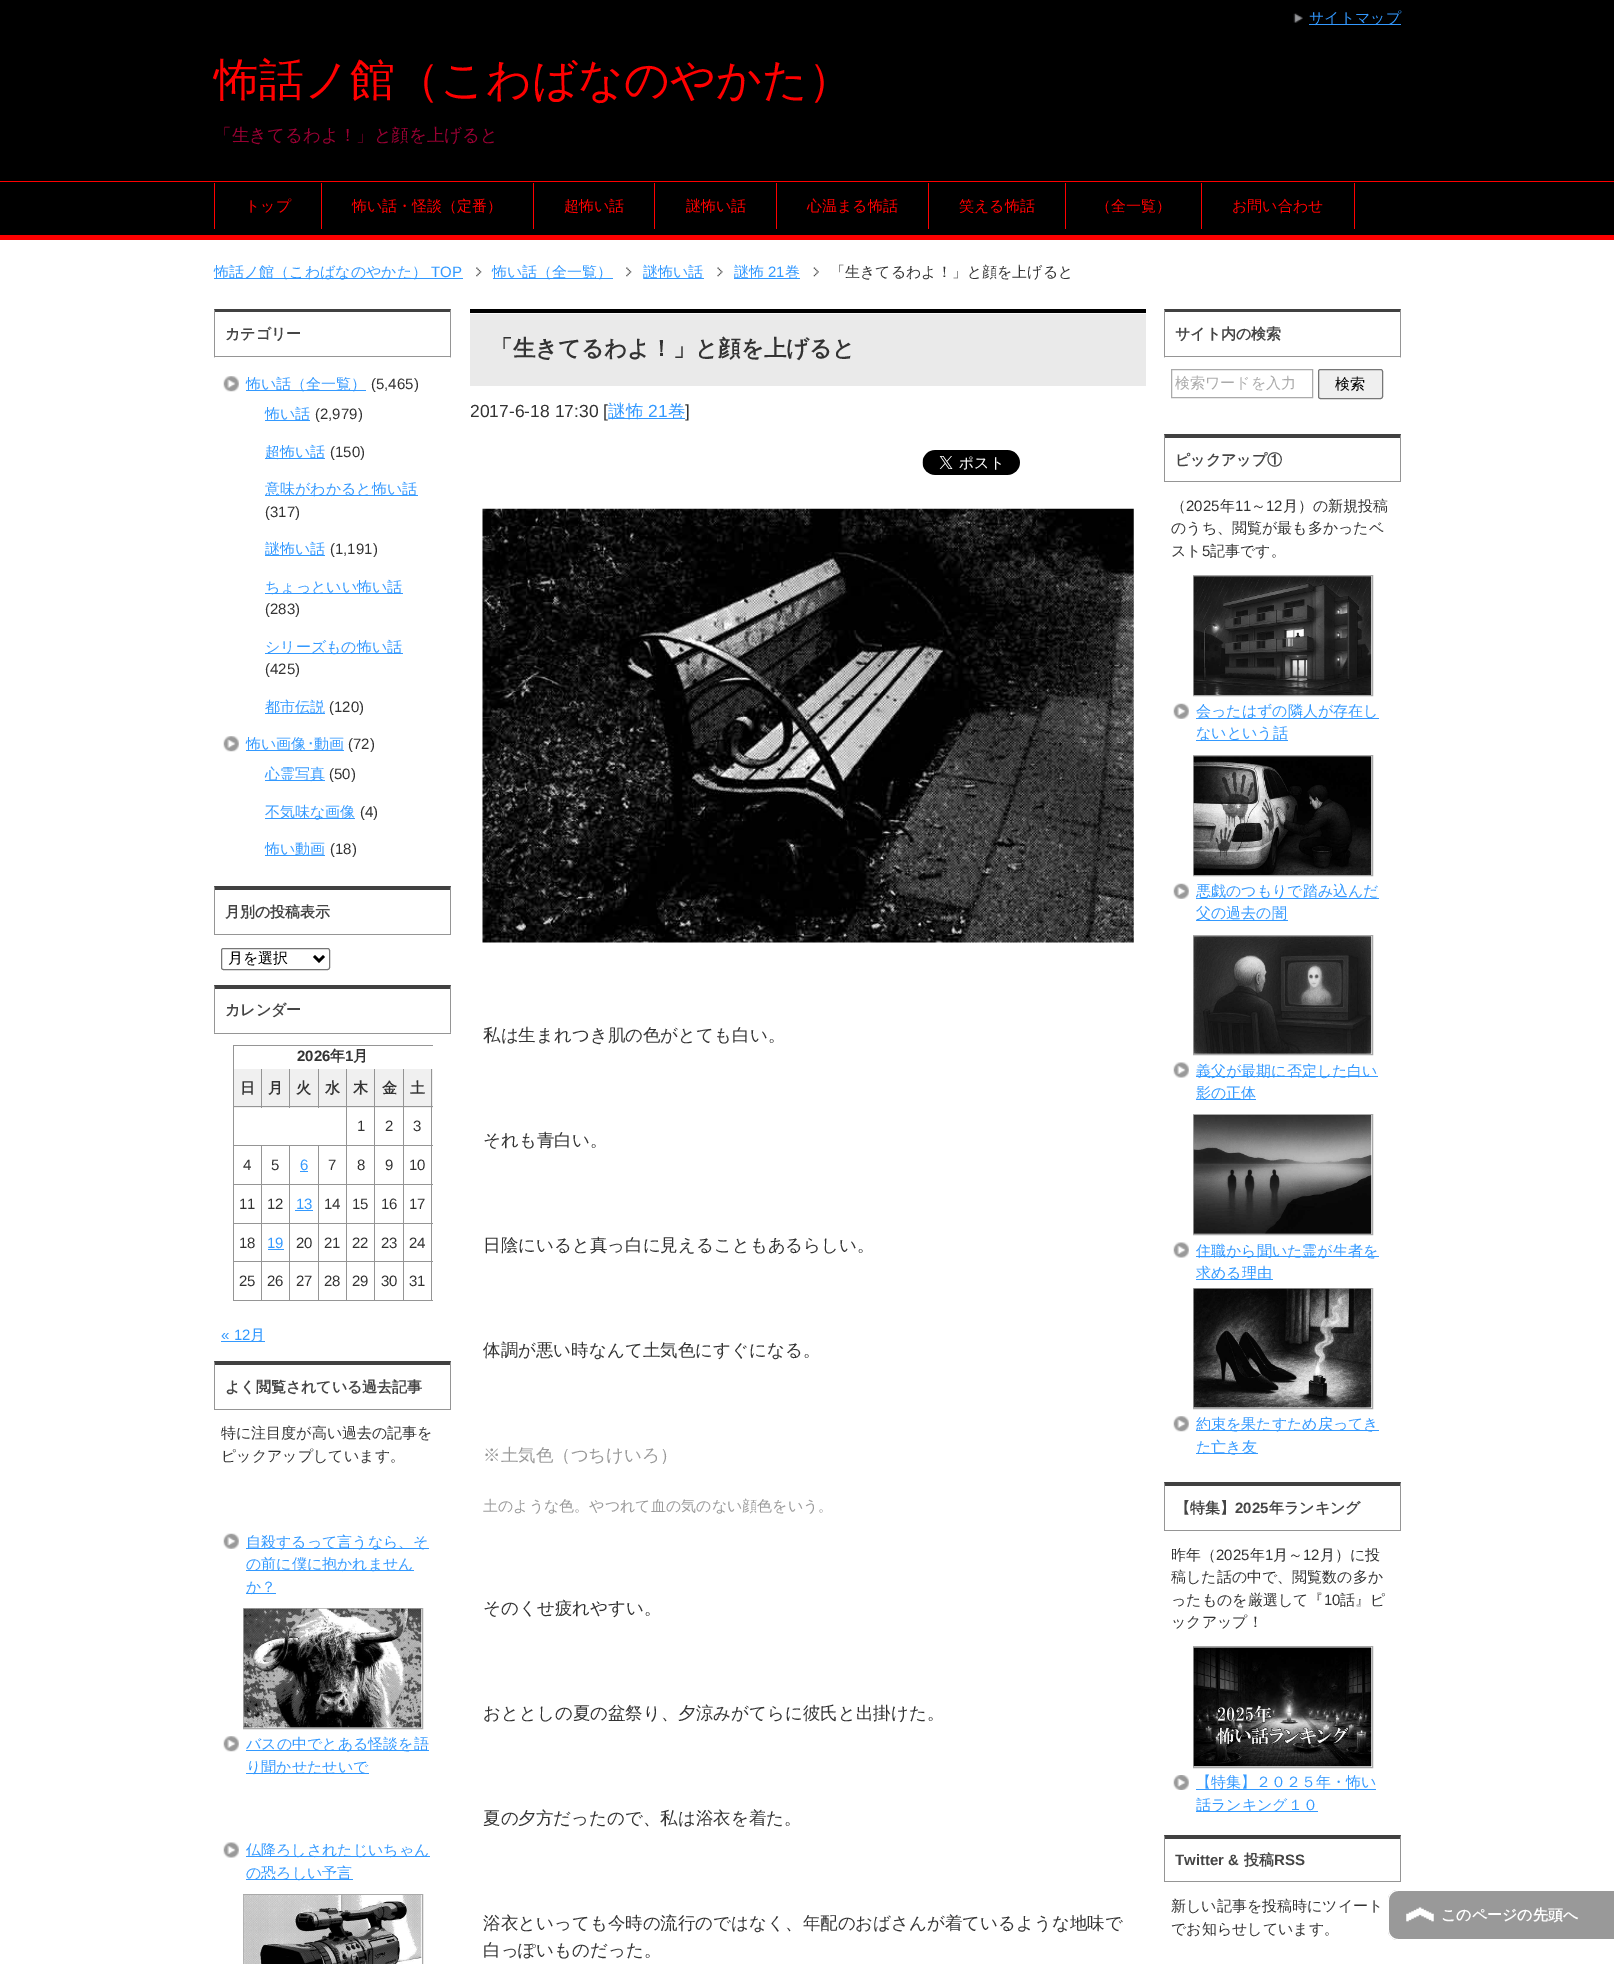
%!PS
<< /PageSize [1614 1964] >> setpagedevice
/m/moveto load def
/l/rlineto load def
/c/rcurveto load def
/z/closepath load def
/f/fill load def
/s/stroke load def
/q/gsave load def
/Q_/grestore load def
/w/setlinewidth load def
/C { dup -16 bitshift 255 div exch dup -8 bitshift 255 and 255 div exch 255 and 255 div setrgbcolor } def
/F { [ exch dup neg 0 0 3 -1 roll 0 0 ] selectfont } def
/T { moveto show } def
/R { rectfill } def
/Q { 5 dict begin { /r /h /w /y /x } { exch def } forall
  x r add y moveto x w add y 2 copy h add r arct x w add y h add x 1 index r arct
  x y h add x y r arct x y 2 copy exch w add exch r arct closepath end } def
/I { 5 dict begin { /h /w /y /x /name } { exch def } forall
  gsave x y translate w h scale
  w h 8 [w 0 0 h 0 0] name (r) file false 3 colorimage grestore end } def
0 1964 translate 1 -1 scale
4 setmiterlimit
16#FFFFFF C
0 0 1614 1964 R
16#000000 C
0 0 1614 35 R
(1.rgb) 1293 13 10 10 I
16#3399FF C
1309 24 92 1 R
/WenQuanYiZenHei-Medium 15 F
(サイトマップ) 1309 23 T
16#000000 C
0 35 1614 146 R
/WenQuanYiZenHei-Medium 45 F
16#FF0000 C
(怖話ノ館（こわばなのやかた）) 214 95 T
/WenQuanYiZenHei-Medium 17.5 F
16#990033 C
(「生きてるわよ！」と顔を上げると) 214 141 T
16#000000 C
0 182 1614 53 R
16#FF0000 C
0 181 1614 1 R
0 235 1614 5 R
321 183 1 46 R
214 183 1 46 R
/WenQuanYiZenHei-Medium 15 F
(トップ) 245 211 T
533 183 1 46 R
(怖い話・怪談（定番）) 352 211 T
654 183 1 46 R
(超怖い話) 564 211 T
776 183 1 46 R
(謎怖い話) 686 211 T
928 183 1 46 R
(心温まる怖話) 807 211 T
1065 183 1 46 R
(笑える怖話) 959 211 T
1201 183 1 46 R
(（全一覧）) 1096 211 T
1354 183 1 46 R
(お問い合わせ) 1232 211 T
16#3399FF C
214 278 249 1 R
(怖話ノ館（こわばなのやかた）) 214 277 T
/LiberationSans-Regular 15 F
(TOP) 431 277 T
(2.rgb) 476 267 6 10 I
493 278 120 1 R
/WenQuanYiZenHei-Medium 15 F
(怖い話（全一覧）) 492 277 T
(2.rgb) 626 267 6 10 I
644 278 60 1 R
(謎怖い話) 643 277 T
(3.rgb) 717 267 6 10 I
734 278 66 1 R
(謎怖) 734 277 T
/LiberationSans-Regular 15 F
(21) 768 277 T
/WenQuanYiZenHei-Medium 15 F
(巻) 785 277 T
(4.rgb) 813 267 6 10 I
16#333333 C
(「生きてるわよ！」と顔を上げると) 830 277 T
16#414141 C
214 309 m 237 0 l -1 3 l -235 0 l z f
16#959595 C
451 309 m 0 49 l -1 -2 l 0 -44 l z f
214 356 237 1 R
214 358 m 0 -49 l 1 3 l 0 44 l z f
/WenQuanYiZenHei-Bold 15 F
16#454545 C
(カテゴリー) 225 339 T
(5.rgb) 223 376 16 16 I
16#3399FF C
246 390 120 1 R
/WenQuanYiZenHei-Medium 15 F
(怖い話（全一覧）) 246 389 T
/LiberationSans-Regular 15 F
16#333333 C
(\(5,465\)) 371 389 T
16#3399FF C
265 420 45 1 R
/WenQuanYiZenHei-Medium 15 F
(怖い話) 265 419 T
/LiberationSans-Regular 15 F
16#333333 C
(\(2,979\)) 315 419 T
16#3399FF C
265 458 60 1 R
/WenQuanYiZenHei-Medium 15 F
(超怖い話) 265 457 T
/LiberationSans-Regular 15 F
16#333333 C
(\(150\)) 330 457 T
16#3399FF C
265 495 153 1 R
/WenQuanYiZenHei-Medium 15 F
(意味がわかると怖い話) 265 494 T
/LiberationSans-Regular 15 F
16#333333 C
(\(317\)) 265 517 T
16#3399FF C
265 555 60 1 R
/WenQuanYiZenHei-Medium 15 F
(謎怖い話) 265 554 T
/LiberationSans-Regular 15 F
16#333333 C
(\(1,191\)) 330 554 T
16#3399FF C
265 593 138 1 R
/WenQuanYiZenHei-Medium 15 F
(ちょっといい怖い話) 265 592 T
/LiberationSans-Regular 15 F
16#333333 C
(\(283\)) 265 614 T
16#3399FF C
265 653 138 1 R
/WenQuanYiZenHei-Medium 15 F
(シリーズもの怖い話) 265 652 T
/LiberationSans-Regular 15 F
16#333333 C
(\(425\)) 265 674 T
16#3399FF C
265 713 60 1 R
/WenQuanYiZenHei-Medium 15 F
(都市伝説) 265 712 T
/LiberationSans-Regular 15 F
16#333333 C
(\(120\)) 329 712 T
(5.rgb) 223 736 16 16 I
16#3399FF C
246 750 98 1 R
/WenQuanYiZenHei-Medium 15 F
(怖い画像) 246 749 T
/IPAPGothic-Regular 15 F
(･) 307 749 T
/WenQuanYiZenHei-Medium 15 F
(動画) 314 749 T
/LiberationSans-Regular 15 F
16#333333 C
(\(72\)) 348 749 T
16#3399FF C
265 780 60 1 R
/WenQuanYiZenHei-Medium 15 F
(心霊写真) 265 779 T
/LiberationSans-Regular 15 F
16#333333 C
(\(50\)) 329 779 T
16#3399FF C
265 818 90 1 R
/WenQuanYiZenHei-Medium 15 F
(不気味な画像) 265 817 T
/LiberationSans-Regular 15 F
16#333333 C
(\(4\)) 360 817 T
16#3399FF C
265 855 60 1 R
/WenQuanYiZenHei-Medium 15 F
(怖い動画) 265 854 T
/LiberationSans-Regular 15 F
16#333333 C
(\(18\)) 330 854 T
16#414141 C
214 886 m 237 0 l -1 4 l -235 0 l z f
16#959595 C
451 886 m 0 49 l -1 -1 l 0 -44 l z f
214 934 237 1 R
214 935 m 0 -49 l 1 4 l 0 44 l z f
/WenQuanYiZenHei-Bold 15 F
16#454545 C
(月別の投稿表示) 225 917 T
16#767676 C
221.5 948.5 108 21 2 Q s
16#000000 C
2.5 w
314 956 m 5 5 l 5 -5 l s
/WenQuanYiZenHei-Medium 15 F
(月を選択) 228 963 T
16#414141 C
214 985 m 237 0 l -1 4 l -235 0 l z f
16#959595 C
451 985 m 0 49 l -1 -2 l 0 -43 l z f
214 1033 237 1 R
214 1034 m 0 -49 l 1 4 l 0 43 l z f
/WenQuanYiZenHei-Bold 15 F
16#454545 C
(カレンダー) 225 1015 T
16#959595 C
233 1045 200 1 R
233 1045 1 256 R
/LiberationSans-Bold 15 F
16#333333 C
(2026) 297 1061 T
/WenQuanYiZenHei-Bold 15 F
(年) 330 1061 T
/LiberationSans-Bold 15 F
(1) 345 1061 T
/WenQuanYiZenHei-Bold 15 F
(月) 353 1061 T
16#F0F0F0 C
234 1069 55 39 R
16#959595 C
261 1069 1 39 R
234 1106 29 1 R
16#333333 C
(日) 240 1093 T
16#959595 C
289 1069 1 39 R
263 1106 27 1 R
16#333333 C
(月) 268 1093 T
16#F0F0F0 C
290 1069 28 39 R
16#959595 C
318 1069 1 39 R
290 1106 29 1 R
16#333333 C
(火) 296 1093 T
16#F0F0F0 C
319 1069 55 39 R
16#959595 C
346 1069 1 232 R
319 1106 29 1 R
16#333333 C
(水) 325 1093 T
16#959595 C
374 1069 1 232 R
348 1106 27 1 R
16#333333 C
(木) 353 1093 T
16#F0F0F0 C
375 1069 28 39 R
16#959595 C
403 1069 1 232 R
375 1106 29 1 R
16#333333 C
(金) 382 1093 T
16#F0F0F0 C
404 1069 29 39 R
16#959595 C
431 1069 1 232 R
404 1106 29 1 R
16#333333 C
(土) 410 1093 T
/LiberationSans-Regular 15 F
(1) 357 1131 T
(2) 385 1131 T
(3) 413 1131 T
16#959595 C
234 1145 199 1 R
261 1146 1 155 R
234 1184 29 1 R
16#333333 C
(4) 243 1170 T
16#959595 C
289 1146 1 155 R
263 1184 27 1 R
16#333333 C
(5) 271 1170 T
16#959595 C
318 1146 1 155 R
290 1184 143 1 R
16#3399FF C
(6) 300 1170 T
300 1171 8 1 R
16#333333 C
(7) 328 1170 T
(8) 357 1170 T
(9) 385 1170 T
(10) 409 1170 T
16#959595 C
234 1223 199 1 R
16#333333 C
(11) 239 1209 T
(12) 267 1209 T
16#3399FF C
(13) 296 1209 T
295 1210 18 1 R
16#333333 C
(14) 324 1209 T
(15) 352 1209 T
(16) 381 1209 T
(17) 409 1209 T
16#959595 C
234 1261 199 1 R
16#333333 C
(18) 239 1248 T
16#3399FF C
(19) 267 1248 T
268 1249 16 1 R
16#333333 C
(20) 296 1248 T
(21) 324 1248 T
(22) 352 1248 T
(23) 381 1248 T
(24) 409 1248 T
16#959595 C
234 1300 199 1 R
16#333333 C
(25) 239 1286 T
(26) 267 1286 T
(27) 296 1286 T
(28) 324 1286 T
(29) 352 1286 T
(30) 381 1286 T
(31) 409 1286 T
16#3399FF C
(« 12) 221 1340 T
221 1341 44 1 R
/WenQuanYiZenHei-Medium 15 F
(月) 250 1340 T
16#414141 C
214 1361 m 237 0 l -1 4 l -235 0 l z f
16#959595 C
451 1361 m 0 49 l -1 -1 l 0 -44 l z f
214 1409 237 1 R
214 1410 m 0 -49 l 1 4 l 0 44 l z f
/WenQuanYiZenHei-Bold 15 F
16#454545 C
(よく閲覧されている過去記事) 225 1392 T
/WenQuanYiZenHei-Medium 15 F
16#333333 C
(特に注目度が高い過去の記事を) 221 1438 T
(ピックアップしています。) 221 1461 T
(6.rgb) 223 1533 16 16 I
16#3399FF C
246 1548 183 1 R
(自殺するって言うなら、そ) 246 1547 T
246 1570 168 1 R
(の前に僕に抱かれません) 246 1569 T
246 1593 30 1 R
(か？) 246 1592 T
16#A9A9A9 C
1 w
243.5 1608.5 179 120 rectstroke
(7.rgb) 243 1608 179 120 I
(5.rgb) 223 1736 16 16 I
16#3399FF C
246 1750 183 1 R
(バスの中でとある怪談を語) 246 1749 T
246 1773 123 1 R
(り聞かせたせいで) 246 1772 T
(8.rgb) 223 1842 16 16 I
246 1856 184 1 R
(仏降ろしされたじいちゃん) 246 1855 T
246 1879 107 1 R
(の恐ろしい予言) 246 1878 T
16#A9A9A9 C
243.5 1894.5 179 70 rectstroke
(9.rgb) 243 1895 179 69 I
16#EAEAEA C
470 313 676 73 R
(10.rgb) 470 313 676 1 I
16#000000 C
470 309 676 4 R
/WenQuanYiZenHei-Bold 22.5 F
16#333333 C
(「生きてるわよ！」と顔を上げると) 490 356 T
/LiberationSans-Regular 17.5 F
(2017-6-18 17:30 [) 470 417 T
16#3399FF C
609 418 76 1 R
/WenQuanYiZenHei-Medium 17.5 F
(謎怖) 608 417 T
/LiberationSans-Regular 17.5 F
(21) 648 417 T
/WenQuanYiZenHei-Medium 17.5 F
(巻) 668 417 T
/LiberationSans-Regular 17.5 F
16#333333 C
(]) 685 417 T
(11.rgb) 922 450 98 25 I
(12.rgb) 482 508 652 435 I
/WenQuanYiZenHei-Medium 17.5 F
(私は生まれつき肌の色がとても白い。) 483 1041 T
(それも青白い。) 483 1146 T
(日陰にいると真っ白に見えることもあるらしい。) 483 1251 T
(体調が悪い時なんて土気色にすぐになる。) 483 1356 T
16#999999 C
(※土気色（つちけいろ）) 483 1461 T
/WenQuanYiZenHei-Medium 15 F
(土のような色。やつれて血の気のない顔色をいう。) 483 1511 T
/WenQuanYiZenHei-Medium 17.5 F
16#333333 C
(そのくせ疲れやすい。) 483 1614 T
(おととしの夏の盆祭り、夕涼みがてらに彼氏と出掛けた。) 483 1719 T
(夏の夕方だったので、私は浴衣を着た。) 483 1824 T
(浴衣といっても今時の流行のではなく、年配のおばさんが着ているような地味で) 483 1929 T
(白っぽいものだった。) 483 1956 T
16#414141 C
1164 309 m 237 0 l -1 3 l -235 0 l z f
16#959595 C
1401 309 m 0 49 l -1 -2 l 0 -44 l z f
1164 356 237 1 R
1164 358 m 0 -49 l 1 3 l 0 44 l z f
/WenQuanYiZenHei-Bold 15 F
16#454545 C
(サイト内の検索) 1175 339 T
16#AAAAAA C
1171.5 369.5 141 28 rectstroke
/WenQuanYiZenHei-Medium 15 F
(検索ワードを入力) 1175 388 T
16#EFEFEF C
1318.5 369.5 64 29 2 Q q f Q_
16#767676 C
s
16#000000 C
(検索) 1335 389 T
16#414141 C
1164 434 m 237 0 l -1 4 l -235 0 l z f
16#959595 C
1401 434 m 0 48 l -1 -1 l 0 -43 l z f
1164 481 237 1 R
1164 482 m 0 -48 l 1 4 l 0 43 l z f
/WenQuanYiZenHei-Bold 15 F
16#454545 C
(ピックアップ①) 1175 465 T
/WenQuanYiZenHei-Medium 15 F
16#333333 C
(（) 1171 511 T
/LiberationSans-Regular 15 F
(2025) 1186 511 T
/WenQuanYiZenHei-Medium 15 F
(年) 1220 511 T
/LiberationSans-Regular 15 F
(11) 1235 511 T
/WenQuanYiZenHei-Medium 15 F
(～) 1251 511 T
/LiberationSans-Regular 15 F
(12) 1266 511 T
/WenQuanYiZenHei-Medium 15 F
(月）の新規投稿) 1283 511 T
(のうち、閲覧が最も多かったベ) 1171 533 T
(スト) 1171 556 T
/LiberationSans-Regular 15 F
(5) 1202 556 T
/WenQuanYiZenHei-Medium 15 F
(記事です。) 1210 556 T
16#A9A9A9 C
1193.5 575.5 179 120 rectstroke
(13.rgb) 1193 576 179 119 I
(14.rgb) 1173 703 16 16 I
16#3399FF C
1196 718 183 1 R
(会ったはずの隣人が存在し) 1196 716 T
1196 740 92 1 R
(ないという話) 1196 738 T
16#A9A9A9 C
1193.5 755.5 179 120 rectstroke
(15.rgb) 1193 756 179 119 I
(14.rgb) 1173 883 16 16 I
16#3399FF C
1196 898 183 1 R
(悪戯のつもりで踏み込んだ) 1196 896 T
1196 920 92 1 R
(父の過去の闇) 1196 918 T
16#A9A9A9 C
1193.5 935.5 179 119 rectstroke
(16.rgb) 1193 936 179 118 I
(17.rgb) 1173 1062 16 16 I
16#3399FF C
1196 1076 182 1 R
(義父が最期に否定した白い) 1196 1076 T
1196 1099 60 1 R
(影の正体) 1196 1098 T
16#A9A9A9 C
1193.5 1114.5 179 120 rectstroke
(18.rgb) 1193 1115 179 119 I
(17.rgb) 1173 1242 16 16 I
16#3399FF C
1196 1256 183 1 R
(住職から聞いた霊が生者を) 1196 1256 T
1196 1279 77 1 R
(求める理由) 1196 1278 T
16#A9A9A9 C
1193.5 1288.5 179 120 rectstroke
(19.rgb) 1193 1288 179 120 I
(20.rgb) 1173 1416 16 16 I
16#3399FF C
1196 1430 183 1 R
(約束を果たすため戻ってき) 1196 1429 T
1196 1453 62 1 R
(た亡き友) 1196 1452 T
16#414141 C
1164 1482 m 237 0 l -1 4 l -235 0 l z f
16#959595 C
1401 1482 m 0 49 l -1 -1 l 0 -44 l z f
1164 1530 237 1 R
1164 1531 m 0 -49 l 1 4 l 0 44 l z f
/WenQuanYiZenHei-Bold 15 F
16#454545 C
(【特集】) 1175 1513 T
/LiberationSans-Bold 15 F
(2025) 1235 1513 T
/WenQuanYiZenHei-Bold 15 F
(年ランキング) 1269 1513 T
/WenQuanYiZenHei-Medium 15 F
16#333333 C
(昨年（) 1171 1560 T
/LiberationSans-Regular 15 F
(2025) 1216 1560 T
/WenQuanYiZenHei-Medium 15 F
(年) 1250 1560 T
/LiberationSans-Regular 15 F
(1) 1265 1560 T
/WenQuanYiZenHei-Medium 15 F
(月～) 1273 1560 T
/LiberationSans-Regular 15 F
(12) 1303 1560 T
/WenQuanYiZenHei-Medium 15 F
(月）に投) 1320 1560 T
(稿した話の中で、閲覧数の多か) 1171 1582 T
(ったものを厳選して『) 1171 1605 T
/LiberationSans-Regular 15 F
(10) 1324 1605 T
/WenQuanYiZenHei-Medium 15 F
(話』ピ) 1340 1605 T
(ックアップ！) 1171 1627 T
16#A9A9A9 C
1193.5 1646.5 179 121 rectstroke
(21.rgb) 1193 1647 179 120 I
(22.rgb) 1173 1775 16 15 I
16#3399FF C
(【特集】２０２５年・怖い) 1196 1787 T
1196 1789 180 1 R
1196 1811 122 1 R
(話ランキング１０) 1196 1810 T
16#414141 C
1164 1835 m 237 0 l -1 4 l -235 0 l z f
16#959595 C
1401 1835 m 0 47 l -1 -1 l 0 -42 l z f
1164 1881 237 1 R
1164 1882 m 0 -47 l 1 4 l 0 42 l z f
/LiberationSans-Bold 15 F
16#454545 C
(Twitter &) 1175 1865 T
/WenQuanYiZenHei-Bold 15 F
(投稿) 1244 1865 T
/LiberationSans-Bold 15 F
(RSS) 1274 1865 T
/WenQuanYiZenHei-Medium 15 F
16#333333 C
(新しい記事を投稿時にツイート) 1171 1911 T
(でお知らせしています。) 1171 1934 T
16#999999 C
1398 1890 m 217 0 l 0 50 l -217 0 l -5.5 0 -10 -4.5 -10 -10 c 0 -30 l 0 -5.5 4.5 -10 10 -10 c z f
(23.rgb) 1406 1907 28 15 I
16#FFFFFF C
1398 1890 m 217 0 l 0 50 l -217 0 l -6 0 -10 -4 -10 -10 c 0 -30 l 0 -6 4 -10 10 -10 c z 1398 1891 m 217 0 l 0 48 l -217 0 l -5 0 -9 -4 -9 -9 c 0 -30 l 0 -5 4 -9 9 -9 c z eofill
/WenQuanYiZenHei-Bold 15 F
(このページの先頭へ) 1441 1920 T
showpage
